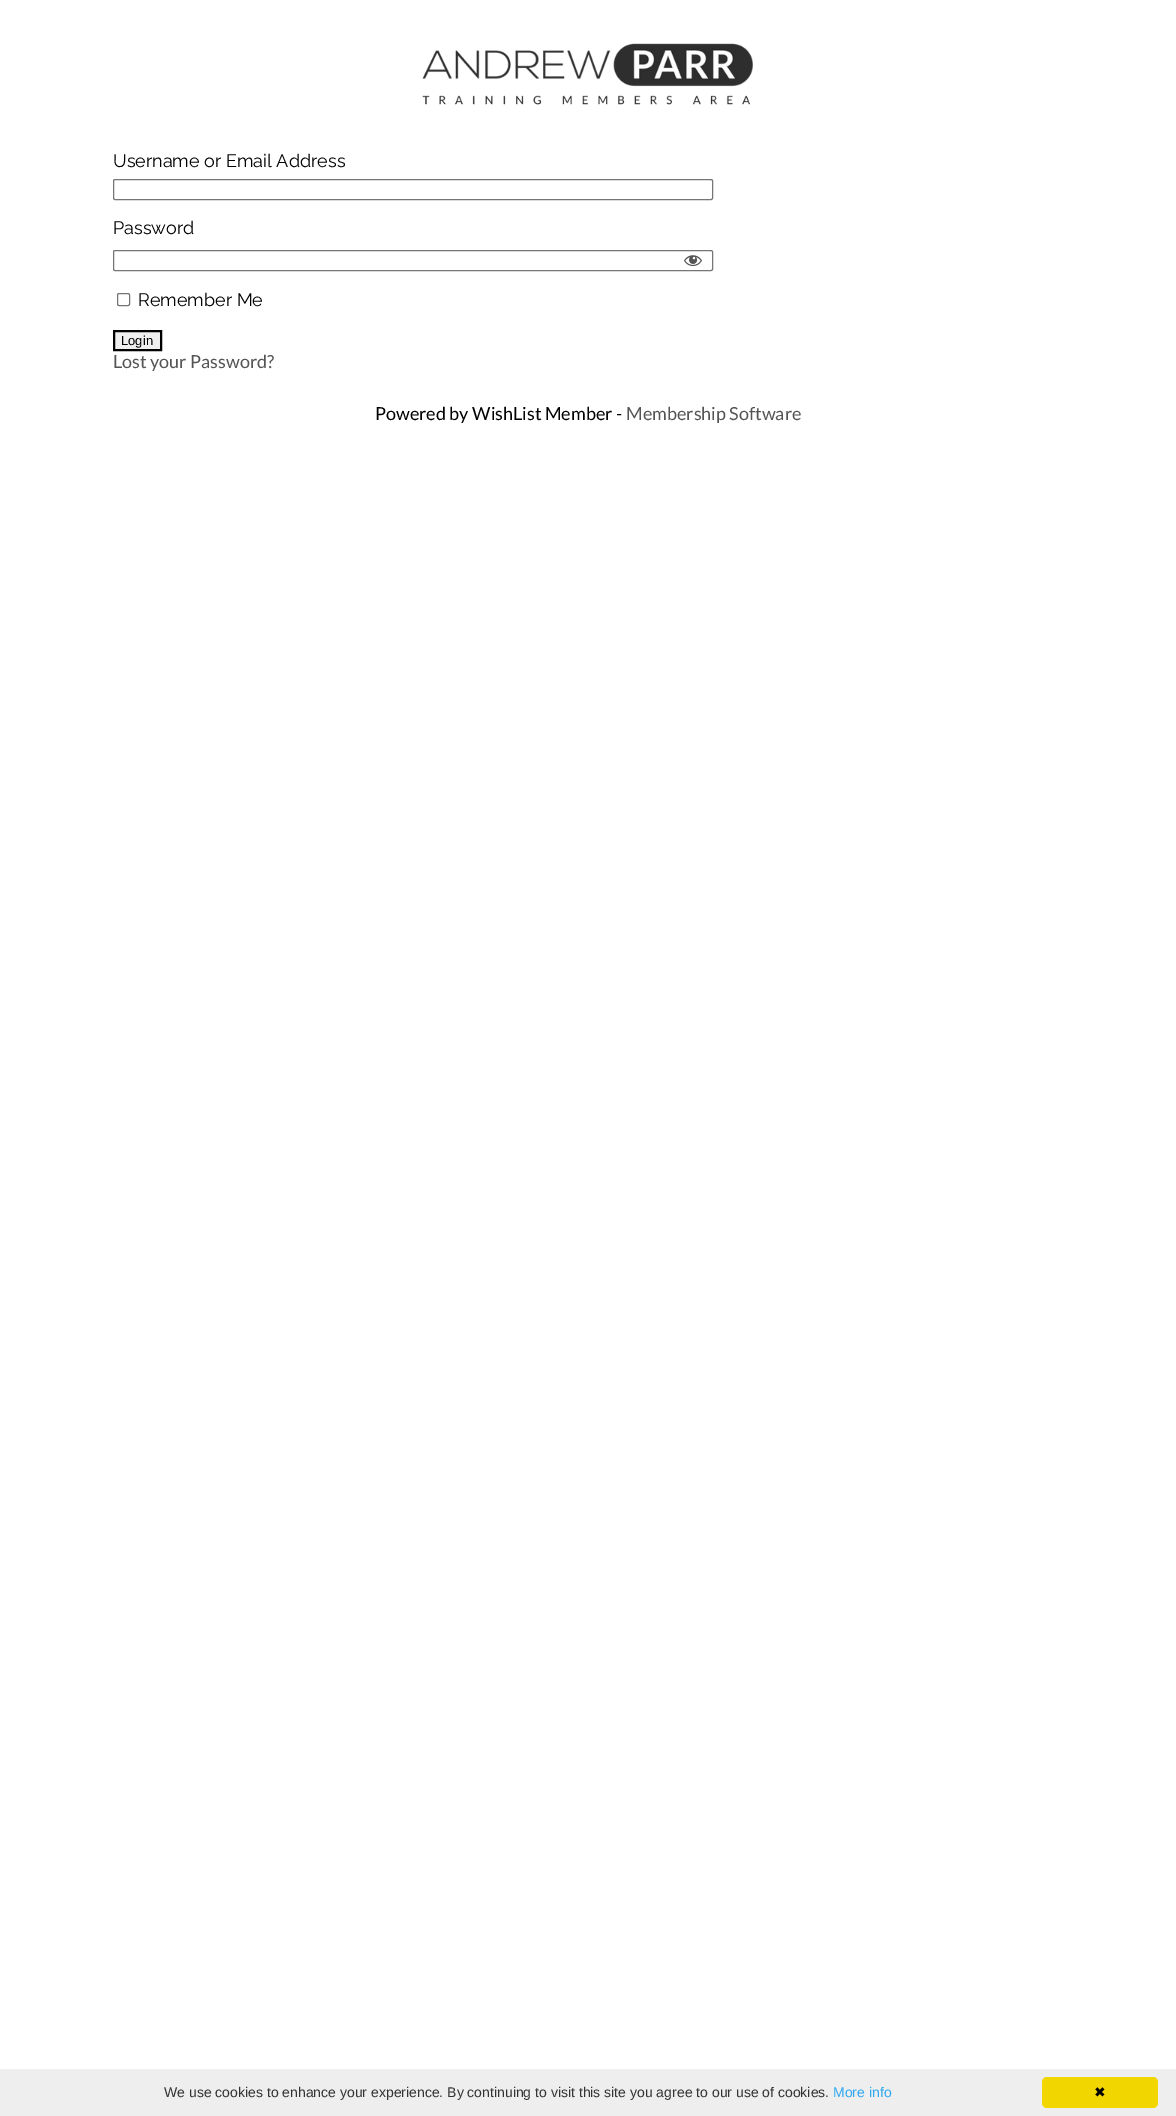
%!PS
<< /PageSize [1176 2116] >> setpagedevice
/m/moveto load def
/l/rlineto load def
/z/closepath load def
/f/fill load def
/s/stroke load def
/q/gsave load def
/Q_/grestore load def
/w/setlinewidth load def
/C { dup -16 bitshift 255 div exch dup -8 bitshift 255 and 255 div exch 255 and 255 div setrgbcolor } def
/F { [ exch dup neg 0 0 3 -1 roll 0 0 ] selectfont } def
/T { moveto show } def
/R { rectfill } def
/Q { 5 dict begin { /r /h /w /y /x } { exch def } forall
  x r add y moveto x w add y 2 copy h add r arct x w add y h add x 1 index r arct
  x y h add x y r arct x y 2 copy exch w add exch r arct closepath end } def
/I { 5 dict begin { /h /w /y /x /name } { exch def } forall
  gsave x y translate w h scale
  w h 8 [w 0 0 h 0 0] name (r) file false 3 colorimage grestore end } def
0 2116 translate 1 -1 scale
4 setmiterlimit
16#FFFFFF C
0 0 1176 2116 R
(1.rgb) 422 43 331 62 I
/Raleway-Regular 18 F
16#000000 C
(Username or Email Address) 113 167 T
16#767676 C
113.5 179.5 599 20 1.5 Q s
16#000000 C
(Password) 113 234 T
16#767676 C
113.5 250.5 599 20 1.5 Q s
(2.rgb) 684 255 18 12 I
117.5 293.5 12 12 1.5 Q s
16#000000 C
(Remember Me) 138 306 T
16#EFEFEF C
114 331 m 47 0 l 0 19 l -47 0 l z q f Q_
16#000000 C
2 w
s
/LiberationSans-Regular 13 F
(Login) 121 345 T
/Lato-Regular 18 F
16#545454 C
(Lost your Password?) 113 368 T
16#000000 C
(Powered by WishList Member -) 375 420 T
16#545454 C
(Membership Software) 626 420 T
16#EEEEEE C
0 2069 1176 47 R
/LiberationSans-Regular 14 F
16#333333 C
(We use cookies to enhance your experience. By continuing to visit this site you agree to our use of cookies.) 164 2097 T
16#31A8F0 C
(More info) 833 2097 T
16#F1D600 C
1042 2077 116 31 5 Q f
/DejaVuSans-Regular 14 F
16#000000 C
(✖) 1094 2097 T
showpage
